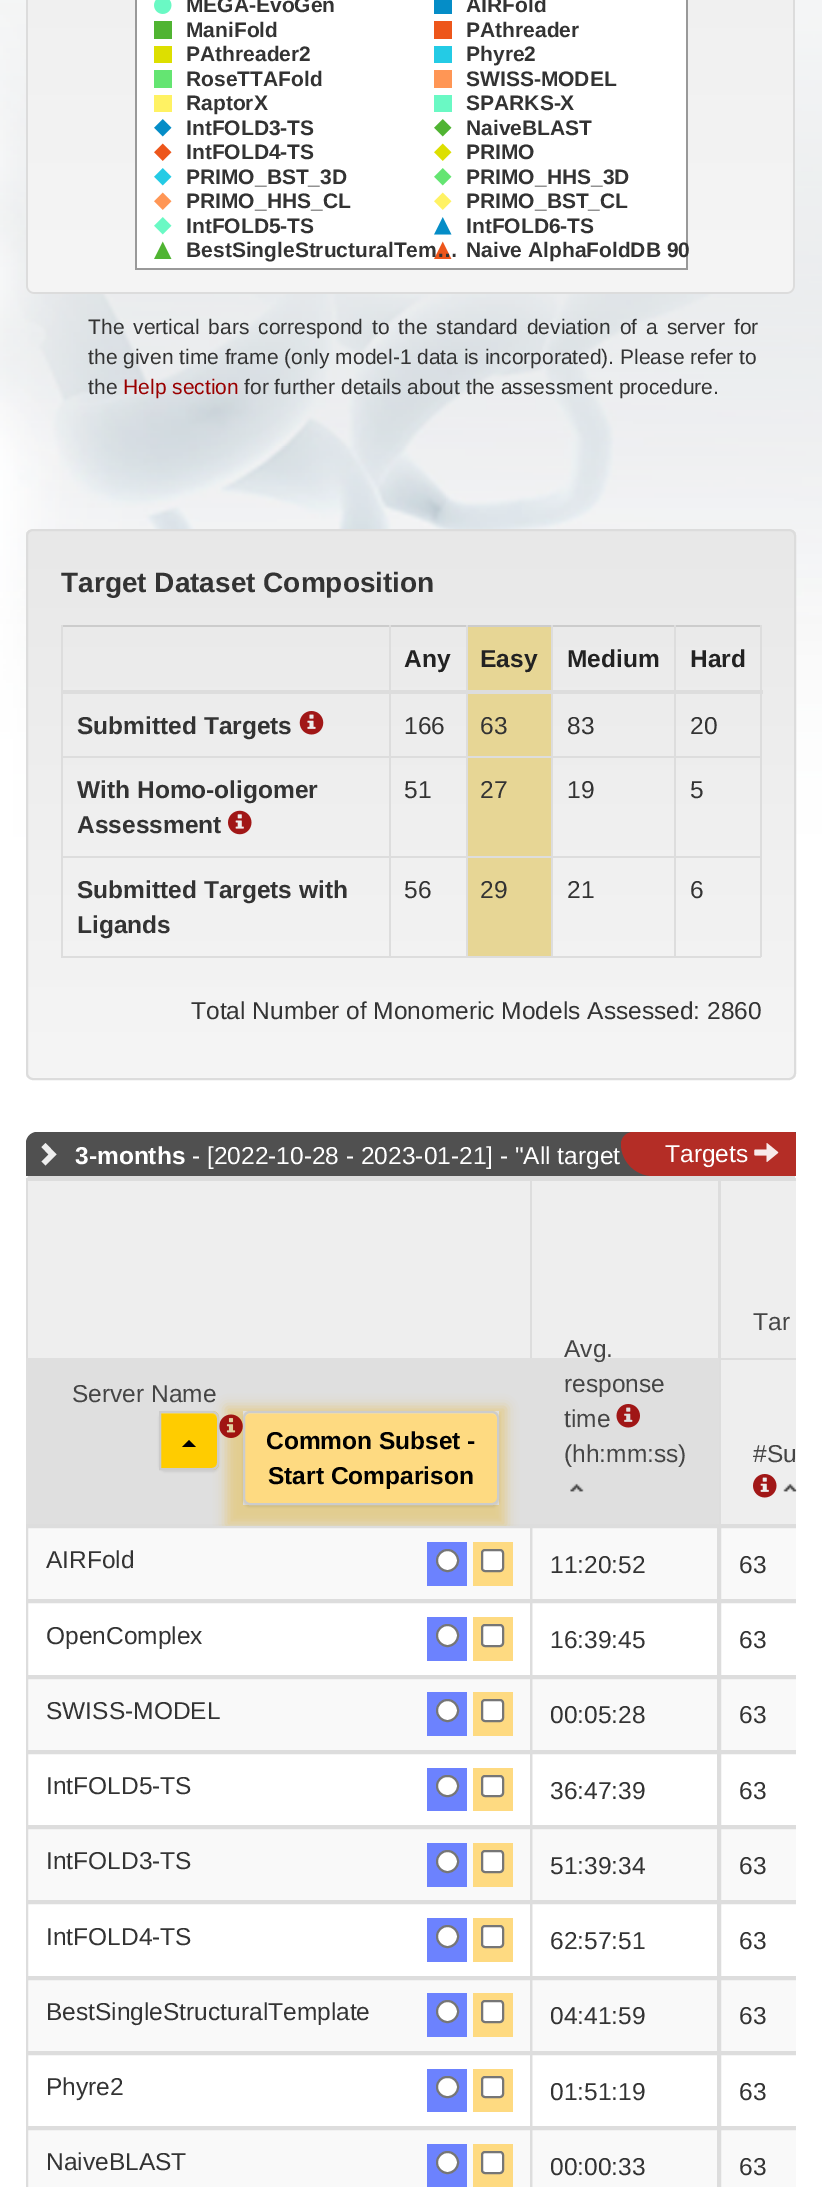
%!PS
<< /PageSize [822 2187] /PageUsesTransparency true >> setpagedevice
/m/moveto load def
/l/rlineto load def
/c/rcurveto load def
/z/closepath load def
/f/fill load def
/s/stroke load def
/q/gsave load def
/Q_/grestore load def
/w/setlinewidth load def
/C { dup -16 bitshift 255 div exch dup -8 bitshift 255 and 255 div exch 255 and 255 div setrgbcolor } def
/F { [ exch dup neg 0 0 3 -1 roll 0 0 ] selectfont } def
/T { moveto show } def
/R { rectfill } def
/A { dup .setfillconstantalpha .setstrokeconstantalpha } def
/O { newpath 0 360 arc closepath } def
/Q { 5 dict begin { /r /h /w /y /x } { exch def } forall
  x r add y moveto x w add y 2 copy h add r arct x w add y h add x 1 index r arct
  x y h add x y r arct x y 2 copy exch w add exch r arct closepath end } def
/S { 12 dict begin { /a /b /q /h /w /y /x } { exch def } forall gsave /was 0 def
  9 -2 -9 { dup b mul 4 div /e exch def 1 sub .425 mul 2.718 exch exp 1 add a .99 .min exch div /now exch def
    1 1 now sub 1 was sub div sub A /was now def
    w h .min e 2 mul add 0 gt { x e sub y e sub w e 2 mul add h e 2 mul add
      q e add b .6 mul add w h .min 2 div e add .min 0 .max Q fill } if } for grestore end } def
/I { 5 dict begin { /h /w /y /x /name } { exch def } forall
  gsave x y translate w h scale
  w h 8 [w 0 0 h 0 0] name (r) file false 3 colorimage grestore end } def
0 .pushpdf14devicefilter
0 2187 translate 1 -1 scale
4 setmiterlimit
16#FFFFFF C
0 0 822 2187 R
(1.rgb) 0 0 822 928 I
(2.rgb) 26 0 769 294 I
/LiberationSans-Bold 21 F
16#333333 C
(MEGA-EvoGen) 186 12 T
(AIRFold) 466 12 T
(ManiFold) 186 37 T
(PAthreader) 466 37 T
(PAthreader2) 186 61 T
(Phyre2) 466 61 T
(RoseTTAFold) 186 86 T
(SWISS-MODEL) 466 86 T
(RaptorX) 186 110 T
(SPARKS-X) 466 110 T
(IntFOLD3-TS) 186 135 T
(NaiveBLAST) 466 135 T
(IntFOLD4-TS) 186 159 T
(PRIMO) 466 159 T
(PRIMO_BST_3D) 186 184 T
(PRIMO_HHS_3D) 466 184 T
(PRIMO_HHS_CL) 186 208 T
(PRIMO_BST_CL) 466 208 T
(IntFOLD5-TS) 186 233 T
(IntFOLD6-TS) 466 233 T
(BestSingleStructuralTem…) 186 257 T
(Naive AlphaFoldDB 90) 466 257 T
/LiberationSans-Regular 21 F
88 334 m 3 0 32 (The vertical bars correspond to the standard deviation of a server for) widthshow
(the given time frame \(only model-1 data is incorporated\). Please refer to) 88 364 T
(the) 88 394 T
16#990000 C
(Help section) 123 394 T
16#333333 C
(for further details about the assessment procedure.) 244 394 T
q
26 529 770 551 7 Q clip newpath
q 26 530 m 770 0 l 0 548 l -770 0 l z clip newpath
<< /ShadingType 2 /ColorSpace /DeviceRGB /Coords [411 530 411 1078] /Extend [true true] /Function << /FunctionType 2 /Domain [0 1] /C0 [.91 .91 .91] /C1 [.961 .961 .961] /N 1 >> >> shfill Q_
Q_
16#DCDCDC C
2 w
27 530 768 549 6 Q s
/LiberationSans-Bold 28 F
16#333333 C
(Target Dataset Composition) 61 592 T
16#CCCCCC C
61 625 700 2 R
16#E7D695 C
468 627 83 329 R
/LiberationSans-Bold 24.5 F
16#222222 C
(Any) 404 667 T
(Easy) 480 667 T
(Medium) 567 667 T
16#DDDDDD C
674 756 87 2 R
674 856 87 2 R
760 856 2 101 R
674 956 87 2 R
674 856 2 101 R
551 856 125 2 R
674 756 2 102 R
551 756 125 2 R
551 956 125 2 R
551 856 2 101 R
466 856 87 2 R
551 756 2 102 R
466 756 87 2 R
466 956 87 2 R
466 856 2 101 R
389 856 78 2 R
466 756 2 102 R
389 756 78 2 R
389 956 78 2 R
389 856 2 101 R
61 856 329 2 R
389 756 2 102 R
61 756 329 2 R
389 625 2 133 R
466 625 2 133 R
551 625 2 133 R
674 625 2 133 R
61 956 329 2 R
61 856 2 101 R
61 625 2 233 R
760 625 2 233 R
61 690 702 4 R
16#222222 C
(Hard) 690 667 T
16#333333 C
(Submitted Targets) 77 734 T
(3.rgb) 299 711 25 24 I
/LiberationSans-Regular 24.5 F
(166) 404 734 T
(63) 480 734 T
(83) 567 734 T
(20) 690 734 T
/LiberationSans-Bold 24.5 F
(With Homo-oligomer) 77 798 T
(Assessment) 77 833 T
(4.rgb) 228 810 24 25 I
/LiberationSans-Regular 24.5 F
(51) 404 798 T
(27) 480 798 T
(19) 567 798 T
(5) 690 798 T
/LiberationSans-Bold 24.5 F
(Submitted Targets with) 77 898 T
(Ligands) 77 933 T
/LiberationSans-Regular 24.5 F
(56) 404 898 T
(29) 480 898 T
(21) 567 898 T
(6) 690 898 T
(Total Number of Monomeric Models Assessed: 2860) 191 1019 T
16#505050 C
37 1132 m 759 0 l 0 44 l -770 0 l 0 -33 l 0 -6 5 -11 11 -11 c z f
16#EEEEEE C
56.5 1154.5 m -11 11 l -4 -4 l 7 -7 l -7 -7.5 l 4 -4 l z f
/LiberationSans-Bold 24.5 F
16#FFFFFF C
(3-months) 75 1164 T
/LiberationSans-Regular 24.5 F
(- [2022-10-28 - 2023-01-21] - "All target) 192 1164 T
16#B42D26 C
633 1132 m 160.5 0 l 1.5 0 2.5 1 2.5 2.5 c 0 41.5 l -143 0 l -17.5 0 -32 -14.5 -32 -32 c 0 -6.5 5.5 -12 12 -12 c z f
16#FFFFFF C
(Targets) 665 1162 T
(5.rgb) 754 1143 25 19 I
16#E9E9E9 C
30 1176 m 762 0 l 2 0 4 2 4 4 c -770 0 l 0 -2 2 -4 4 -4 c z f
16#DDDDDD C
28 1176 767 2 R
26 1178 770 2 R
16#EEEEEE C
28 1181 502 177 R
16#DDDDDD C
530 1181 2 177 R
26 1181 2 177 R
16#DFDFDF C
26 1358 693 166 R
16#454545 C
(Server Name) 72 1402 T
16#DDDDDD C
26 1524 770 2 R
q
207 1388 m 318 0 l 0 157 l -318 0 l z 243 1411 m 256 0 l 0 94 l -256 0 l z eoclip newpath
16#E3C97D C
226 1407 280 119 0 6 .82 S
Q_
16#000000 C
243 1412 256 95 7 1 .07 S
(6.rgb) 219 1414 24 24 I
159 1412 60 60 7 1 .07 S
16#FFCC00 C
159 1411 m 53 0 l 4 0 7 3 7 7 c 0 45 l 0 4 -3 7 -7 7 c -53 0 l z f
16#FFD426 C
161 1414 m 51 0 l 3 0 5 2 5 5 c 0 -2 l 0 -3 -2 -5 -5 -5 c -51 0 l z f
16#CCCCCC C
160 1412 m 52 0 l 3.5 0 6 2.5 6 6 c 0 45 l 0 3.5 -2.5 6 -6 6 c -52 0 l z s
16#000000 C
196 1447 m -14 0 l 7 -7 l z f
16#FEDA81 C
243 1411 256 94 7 Q f
16#FEE094 C
250 1414 m 242 0 l 3 0 5 2 5 5 c 0 -3 -1 -7 -5 -7 c -242 0 l -4 0 -5 4 -5 7 c 0 -3 2 -5 5 -5 c z f
16#CCCCCC C
244 1412 254 92 6 Q s
/LiberationSans-Bold 24.5 F
16#000000 C
(Common Subset -) 266 1449 T
(Start Comparison) 268 1484 T
16#F9F9F9 C
532 1528 264 71 R
16#DDDDDD C
531 1527 187 73 rectstroke
16#F9F9F9 C
27 1527 m 504 0 l 0 73 l -504 0 l z q f Q_
16#DDDDDD C
s
/LiberationSans-Regular 24.5 F
16#333333 C
(AIRFold) 46 1568 T
16#6C82FE C
427 1542 40 44 R
16#FFFFFF C
447.5 1560.5 10.5 O q f Q_
16#767676 C
s
16#FEDA81 C
473 1542 40 44 R
16#FFFFFF C
482 1550 21 21 3 Q q f Q_
16#767676 C
s
16#DDDDDD C
531 1602 187 74 rectstroke
27 1602 504 74 rectstroke
16#333333 C
(OpenComplex) 46 1644 T
16#6C82FE C
427 1617 40 44 R
16#FFFFFF C
447.5 1635.5 10.5 O q f Q_
16#767676 C
s
16#FEDA81 C
473 1617 40 44 R
16#FFFFFF C
482 1625 21 21 3 Q q f Q_
16#767676 C
s
16#F9F9F9 C
532 1679 264 71 R
16#DDDDDD C
531 1678 187 73 rectstroke
16#F9F9F9 C
27 1678 m 504 0 l 0 73 l -504 0 l z q f Q_
16#DDDDDD C
s
16#333333 C
(SWISS-MODEL) 46 1719 T
16#6C82FE C
427 1692 40 44 R
16#FFFFFF C
447.5 1710.5 10.5 O q f Q_
16#767676 C
s
16#FEDA81 C
473 1692 40 44 R
16#FFFFFF C
482 1700 21 21 3 Q q f Q_
16#767676 C
s
16#DDDDDD C
531 1753 187 73 rectstroke
27 1753 504 73 rectstroke
16#333333 C
(IntFOLD5-TS) 46 1794 T
16#6C82FE C
427 1768 40 43 R
16#FFFFFF C
437 1776 21 20 10 Q q f Q_
16#767676 C
s
16#FEDA81 C
473 1768 40 43 R
16#FFFFFF C
482 1776 21 20 3 Q q f Q_
16#767676 C
s
16#F9F9F9 C
532 1829 264 71 R
16#DDDDDD C
531 1828 187 73 rectstroke
16#F9F9F9 C
27 1828 m 504 0 l 0 73 l -504 0 l z q f Q_
16#DDDDDD C
s
16#333333 C
(IntFOLD3-TS) 46 1869 T
16#6C82FE C
427 1843 40 44 R
16#FFFFFF C
447.5 1861.5 10.5 O q f Q_
16#767676 C
s
16#FEDA81 C
473 1843 40 44 R
16#FFFFFF C
482 1851 21 21 3 Q q f Q_
16#767676 C
s
16#DDDDDD C
531 1903 187 74 rectstroke
27 1903 504 74 rectstroke
16#333333 C
(IntFOLD4-TS) 46 1945 T
16#6C82FE C
427 1918 40 44 R
16#FFFFFF C
447.5 1936.5 10.5 O q f Q_
16#767676 C
s
16#FEDA81 C
473 1918 40 44 R
16#FFFFFF C
482 1926 21 21 3 Q q f Q_
16#767676 C
s
16#F9F9F9 C
532 1980 264 71 R
16#DDDDDD C
531 1979 187 73 rectstroke
16#F9F9F9 C
27 1979 m 504 0 l 0 73 l -504 0 l z q f Q_
16#DDDDDD C
s
16#333333 C
(BestSingleStructuralTemplate) 46 2020 T
16#6C82FE C
427 1993 40 44 R
16#FFFFFF C
447.5 2011.5 10.5 O q f Q_
16#767676 C
s
16#FEDA81 C
473 1993 40 44 R
16#FFFFFF C
482 2001 21 21 3 Q q f Q_
16#767676 C
s
16#DDDDDD C
531 2054 187 73 rectstroke
27 2054 504 73 rectstroke
16#333333 C
(Phyre2) 46 2095 T
16#6C82FE C
427 2069 40 43 R
16#FFFFFF C
437 2077 21 20 10 Q q f Q_
16#767676 C
s
16#FEDA81 C
473 2069 40 43 R
16#FFFFFF C
482 2077 21 20 3 Q q f Q_
16#767676 C
s
16#F9F9F9 C
532 2130 264 57 R
16#DDDDDD C
531 2129 187 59 rectstroke
16#F9F9F9 C
27 2129 m 504 0 l 0 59 l -504 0 l z q f Q_
16#DDDDDD C
s
16#333333 C
(NaiveBLAST) 46 2170 T
16#6C82FE C
427 2144 40 43 R
16#FFFFFF C
447.5 2162.5 10.5 O q f Q_
16#767676 C
s
16#FEDA81 C
473 2144 40 43 R
16#FFFFFF C
482 2152 21 21 3 Q q f Q_
16#767676 C
s
16#DDDDDD C
26 1180 770 1 R
16#EEEEEE C
721 1181 75 177 R
16#454545 C
(Tar) 753 1330 T
16#EEEEEE C
532 1181 186 177 R
16#DDDDDD C
718 1181 3 177 R
16#454545 C
(Avg.) 564 1357 T
(response) 564 1392 T
(time) 564 1427 T
(7.rgb) 616 1404 24 24 I
(\(hh:mm:ss\)) 564 1462 T
(8.rgb) 570 1483 14 9 I
16#EEEEEE C
721 1360 75 164 R
16#DDDDDD C
719 1358 77 2 R
719 1358 2 166 R
16#454545 C
(#Su) 753 1462 T
(9.rgb) 753 1474 24 24 I
(10.rgb) 783 1483 14 9 I
16#333333 C
(11:20:52) 550 1573 T
q
26 1524 770 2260 rectclip
16#DDDDDD C
720 1527 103 73 rectstroke
Q_
(63) 739 1573 T
(16:39:45) 550 1648 T
q
26 1524 770 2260 rectclip
16#DDDDDD C
720 1602 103 74 rectstroke
Q_
(63) 739 1648 T
(00:05:28) 550 1723 T
q
26 1524 770 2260 rectclip
16#DDDDDD C
720 1678 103 73 rectstroke
Q_
(63) 739 1723 T
(36:47:39) 550 1799 T
q
26 1524 770 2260 rectclip
16#DDDDDD C
720 1753 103 73 rectstroke
Q_
(63) 739 1799 T
(51:39:34) 550 1874 T
q
26 1524 770 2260 rectclip
16#DDDDDD C
720 1828 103 73 rectstroke
Q_
(63) 739 1874 T
(62:57:51) 550 1949 T
q
26 1524 770 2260 rectclip
16#DDDDDD C
720 1903 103 74 rectstroke
Q_
(63) 739 1949 T
(04:41:59) 550 2024 T
q
26 1524 770 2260 rectclip
16#DDDDDD C
720 1979 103 73 rectstroke
Q_
(63) 739 2024 T
(01:51:19) 550 2100 T
q
26 1524 770 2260 rectclip
16#DDDDDD C
720 2054 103 73 rectstroke
Q_
(63) 739 2100 T
(00:00:33) 550 2175 T
q
26 1524 770 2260 rectclip
16#DDDDDD C
720 2129 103 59 rectstroke
Q_
(63) 739 2175 T
.poppdf14devicefilter showpage
